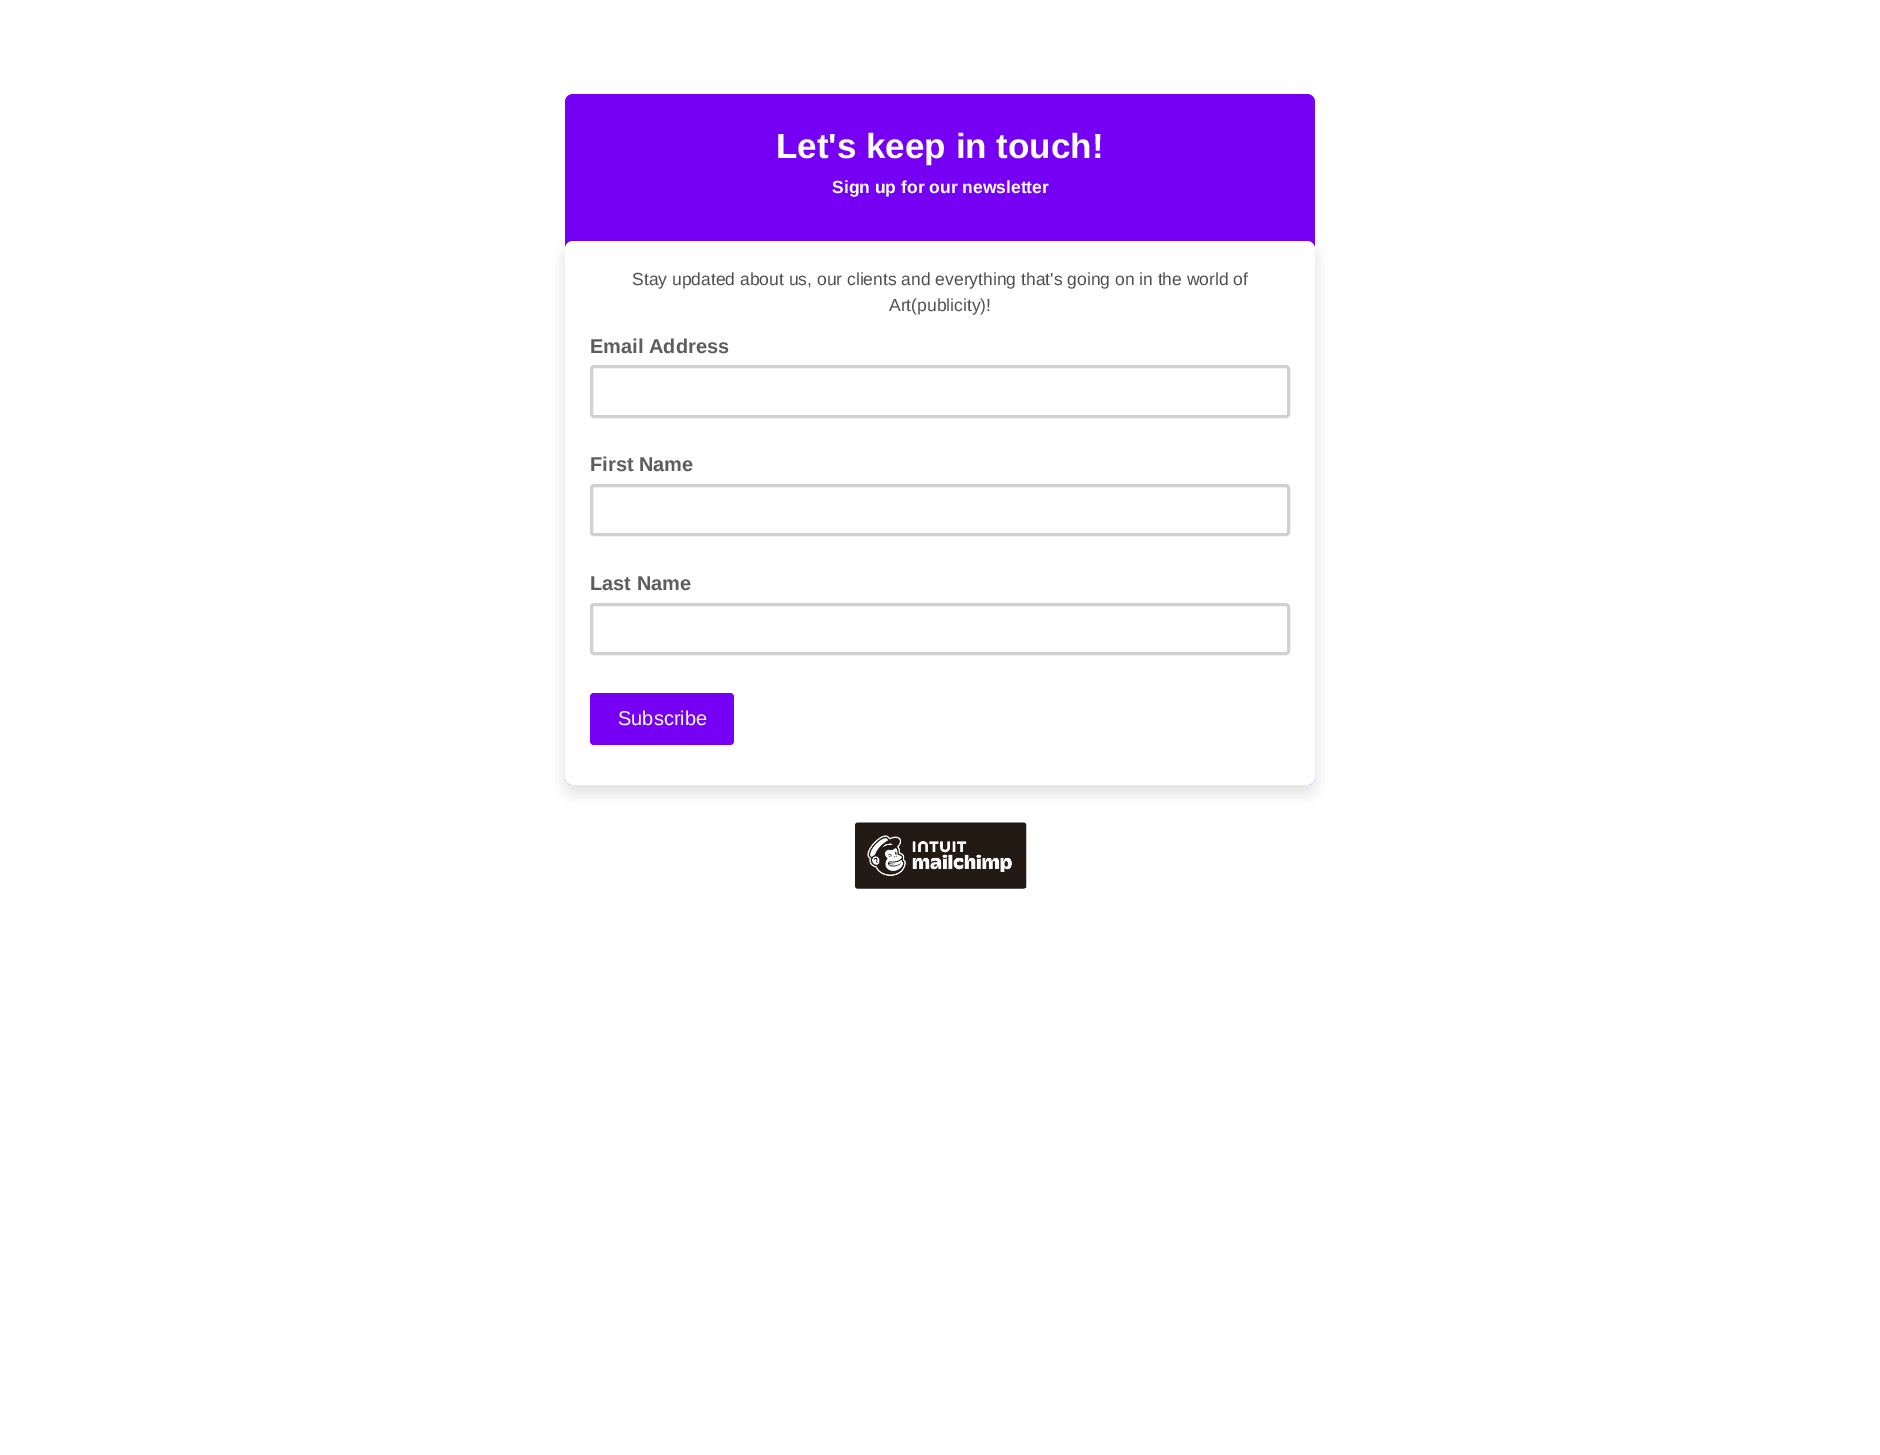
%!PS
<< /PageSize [1880 1455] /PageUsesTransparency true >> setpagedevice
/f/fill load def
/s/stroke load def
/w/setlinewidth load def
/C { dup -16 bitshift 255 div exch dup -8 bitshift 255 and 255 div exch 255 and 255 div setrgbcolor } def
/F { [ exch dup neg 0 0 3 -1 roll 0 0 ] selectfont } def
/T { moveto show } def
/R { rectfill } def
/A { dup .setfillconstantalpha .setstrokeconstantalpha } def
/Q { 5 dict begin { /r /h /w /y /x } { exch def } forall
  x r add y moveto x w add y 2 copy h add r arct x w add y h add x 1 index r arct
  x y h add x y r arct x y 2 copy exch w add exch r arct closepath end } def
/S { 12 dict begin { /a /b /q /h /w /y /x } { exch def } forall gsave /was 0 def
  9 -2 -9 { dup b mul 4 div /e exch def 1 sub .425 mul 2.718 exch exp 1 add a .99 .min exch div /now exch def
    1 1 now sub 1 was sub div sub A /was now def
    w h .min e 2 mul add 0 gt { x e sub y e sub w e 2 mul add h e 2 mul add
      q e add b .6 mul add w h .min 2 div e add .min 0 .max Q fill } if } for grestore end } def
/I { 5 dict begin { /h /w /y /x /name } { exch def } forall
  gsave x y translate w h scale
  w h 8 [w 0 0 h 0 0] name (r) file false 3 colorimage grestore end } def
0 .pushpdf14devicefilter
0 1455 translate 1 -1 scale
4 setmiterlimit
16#FFFFFF C
0 0 1880 1455 R
16#7500F3 C
565 94 750 691 8 Q f
/LiberationSans-Bold 35 F
16#FFFFFF C
(Let's keep in touch!) 776 158 T
/LiberationSans-Bold 17.5 F
(Sign up for our newsletter) 832 193 T
16#0D1216 C
565 249 750 544 8 7.5 .12 S
16#FFFFFF C
565 241 750 544 8 Q f
/LiberationSans-Regular 17.5 F
16#504F4F C
(Stay updated about us, our clients and everything that's going on in the world of) 632 285 T
(Art\(publicity\)!) 889 311 T
/LiberationSans-Bold 20 F
16#5D5D5D C
(Email Address) 590 353 T
16#D0D0D0 C
3 w
591.5 366.5 697 50 2.5 Q s
16#5D5D5D C
(First Name) 590 471 T
16#D0D0D0 C
591.5 485.5 697 49 2.5 Q s
16#5D5D5D C
(Last Name) 590 590 T
16#D0D0D0 C
591.5 604.5 697 49 2.5 Q s
16#7500F3 C
590 693 144 52 4 Q f
/LiberationSans-Regular 20 F
16#FFFFFF C
(Subscribe) 618 725 T
(1.rgb) 855 822 172 67 I
.poppdf14devicefilter showpage
